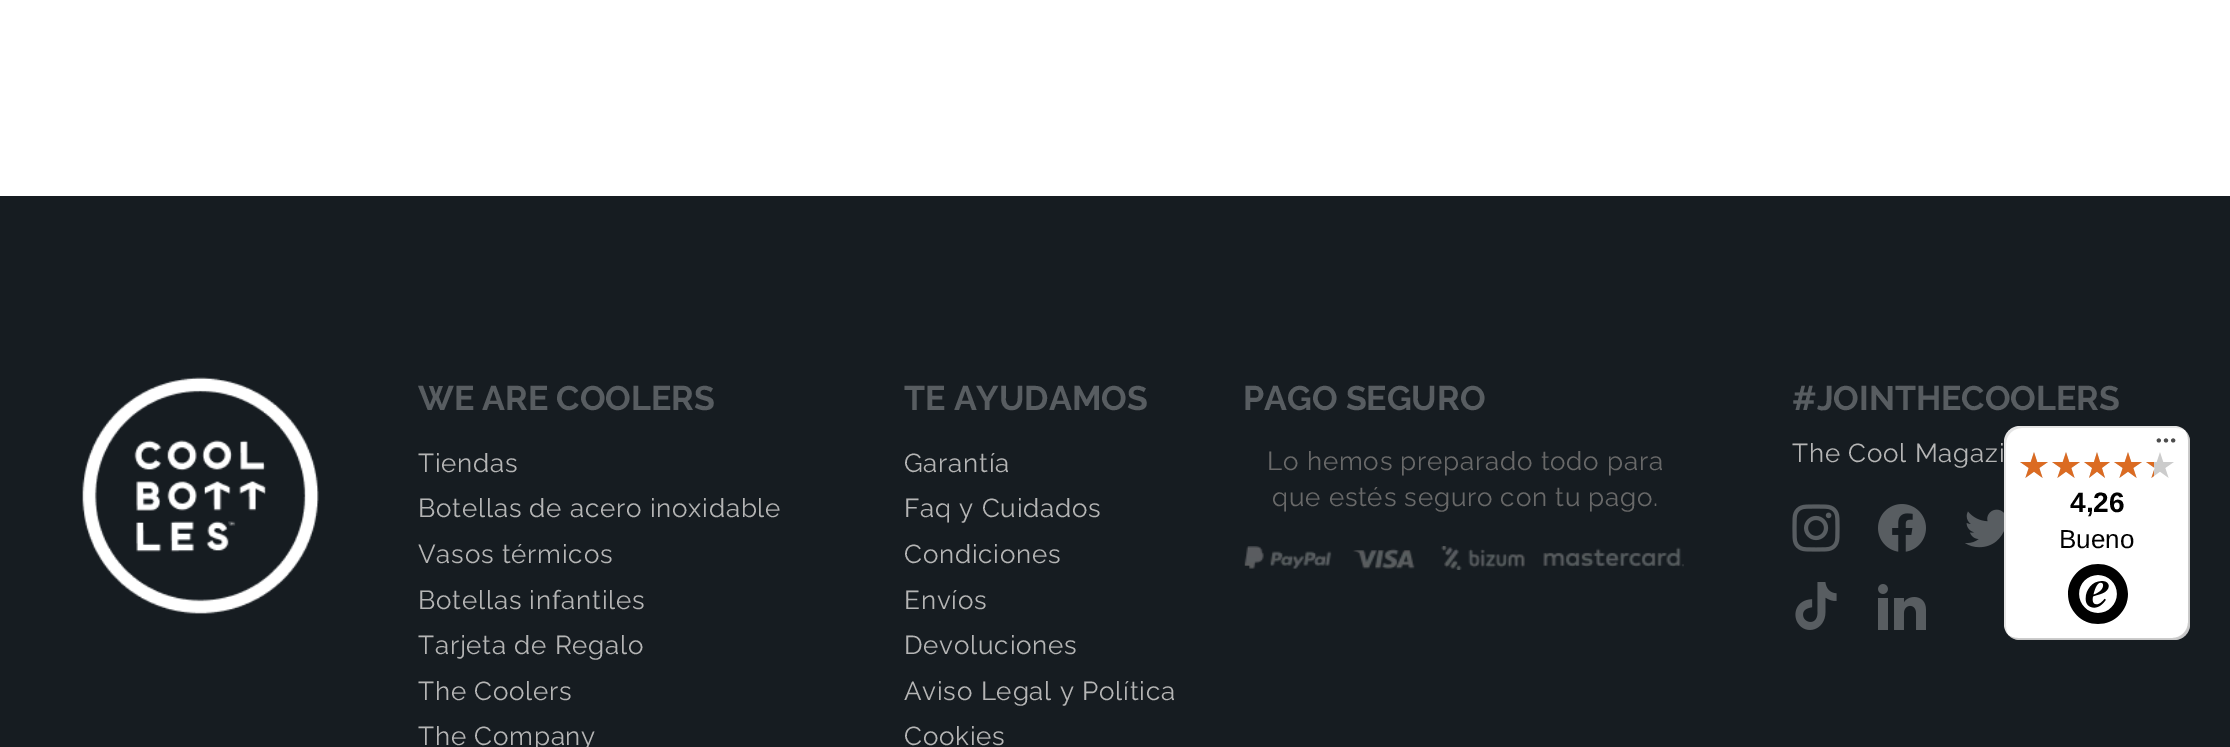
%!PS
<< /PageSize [2230 747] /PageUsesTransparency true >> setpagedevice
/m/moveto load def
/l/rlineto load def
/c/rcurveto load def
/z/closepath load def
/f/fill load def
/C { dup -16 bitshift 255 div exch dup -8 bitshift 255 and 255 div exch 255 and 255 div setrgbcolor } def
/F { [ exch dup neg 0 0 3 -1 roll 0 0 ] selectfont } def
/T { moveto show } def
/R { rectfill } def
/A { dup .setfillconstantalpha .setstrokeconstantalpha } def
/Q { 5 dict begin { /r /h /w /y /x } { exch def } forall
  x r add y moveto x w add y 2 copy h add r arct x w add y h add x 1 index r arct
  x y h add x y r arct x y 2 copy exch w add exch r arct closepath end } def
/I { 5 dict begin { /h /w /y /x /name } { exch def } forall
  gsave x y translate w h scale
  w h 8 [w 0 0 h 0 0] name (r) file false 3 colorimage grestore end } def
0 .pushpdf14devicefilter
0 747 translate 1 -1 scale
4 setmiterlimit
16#FFFFFF C
0 0 2230 747 R
16#161C21 C
0 196 2230 551 R
(1.rgb) 82 377 237 237 I
/Raleway-Bold 34 F
16#585D61 C
(WE ARE COOLERS) 418 410 T
/Raleway-Regular 26 F
16#B5B5B5 C
418 472 m .8 0 (Tiendas) ashow
418 517 m .8 0 (Botellas de acero inoxidable) ashow
418 563 m .8 0 (Vasos térmicos) ashow
418 609 m .8 0 (Botellas infantiles) ashow
418 654 m .8 0 (Tarjeta de Regalo) ashow
418 700 m .8 0 (The Coolers) ashow
418 745 m .8 0 (The Company) ashow
/Raleway-Bold 34 F
16#585D61 C
(TE AYUDAMOS) 904 410 T
/Raleway-Regular 26 F
16#B5B5B5 C
904 472 m .8 0 (Garantía) ashow
904 517 m .8 0 (Faq y Cuidados) ashow
904 563 m .8 0 (Condiciones) ashow
904 609 m .8 0 (Envíos) ashow
904 654 m .8 0 (Devoluciones) ashow
904 700 m .8 0 (Aviso Legal y Política) ashow
904 745 m .8 0 (Cookies) ashow
/Raleway-Bold 34 F
16#585D61 C
(PAGO SEGURO) 1243 410 T
/Raleway-Regular 26 F
16#696969 C
1267 470 m .8 0 (Lo hemos preparado todo para) ashow
1272 506 m .8 0 (que estés seguro con tu pago.) ashow
(2.rgb) 1244 546 440 24 I
/Raleway-Bold 34 F
16#585D61 C
(#JOINTHECOOLERS) 1792 410 T
/Raleway-Regular 26 F
16#B5B5B5 C
1792 462 m .8 0 (The Cool Magazi) ashow
(3.rgb) 1792 504 48 48 I
(4.rgb) 1878 504 48 48 I
(5.rgb) 1965 509 39 39 I
(6.rgb) 1795 582 42 48 I
(7.rgb) 1878 584 48 46 I
16#FFFFFF C
2004 426 186 214 16 Q f
0.1 A
16#000000 C
2022 428 m 154 0 l 4 0 7 1 10 3 c -3 -3 -7 -5 -12 -5 c -154 0 l -9 0 -16 7 -16 16 c 0 182 l 0 5 2 9 5 12 c -2 -3 -3 -6 -3 -10 c 0 -182 l 0 -9 7 -16 16 -16 c z f
0.2 A
2008 635 m 3 3 7 5 12 5 c 154 0 l 9 0 16 -7 16 -16 c 0 -182 l 0 -5 -2 -9 -5 -12 c 2 3 3 6 3 10 c 0 182 l 0 9 -7 16 -16 16 c -154 0 l -4 0 -7 -1 -10 -3 c z f
16#323232 C
2009 635 m 3 3 7 5 11 5 c 154 0 l 9 0 16 -7 16 -16 c 0 -182 l 0 -4 -2 -8 -5 -11 c 3 3 4 6 4 10 c 0 182 l 0 9 -7 16 -16 16 c -154 0 l -4 0 -7 -1 -10 -4 c z f
0.3 A
16#FFFFFF C
2009 635 m 3 3 7 5 11 5 c 154 0 l 9 0 16 -7 16 -16 c 0 -182 l 0 -4 -2 -8 -5 -11 c 3 3 4 6 4 10 c 0 182 l 0 9 -7 16 -16 16 c -154 0 l -4 0 -7 -1 -10 -4 c z f
1 A
(8.rgb) 2156 438 20 5 I
(9.rgb) 2020 452 28 26 I
(9.rgb) 2052 452 28 26 I
(10.rgb) 2084 452 26 26 I
(9.rgb) 2114 452 28 26 I
(9.rgb) 2146 452 28 26 I
(11.rgb) 2020 452 28 26 I
(11.rgb) 2052 452 28 26 I
(12.rgb) 2084 452 26 26 I
(11.rgb) 2114 452 28 26 I
(13.rgb) 2146 462 8 16 I
/LiberationSans-Bold 28 F
16#000000 C
(4,26) 2070 512 T
/LiberationSans-Regular 26 F
(Bueno) 2059 548 T
(14.rgb) 2068 564 60 60 I
.poppdf14devicefilter showpage
